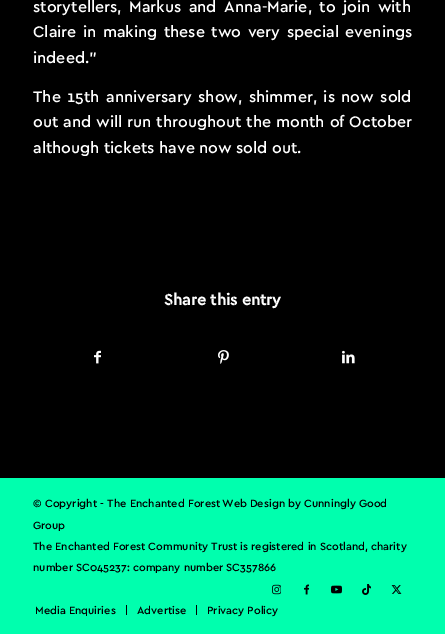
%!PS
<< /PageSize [445 634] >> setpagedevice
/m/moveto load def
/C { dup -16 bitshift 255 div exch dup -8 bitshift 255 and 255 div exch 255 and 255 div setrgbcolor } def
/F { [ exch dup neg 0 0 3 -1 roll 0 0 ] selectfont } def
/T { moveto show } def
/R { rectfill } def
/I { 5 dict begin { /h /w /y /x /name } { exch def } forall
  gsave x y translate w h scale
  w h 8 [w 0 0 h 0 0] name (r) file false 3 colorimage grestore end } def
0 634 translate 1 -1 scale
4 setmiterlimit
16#000000 C
0 0 445 634 R
/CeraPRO-Medium 16 F
16#FFFFFF C
33 12 m 3 0 32 (storytellers, Markus and Anna-Marie, to join with) widthshow
33 37 m 2 0 32 (Claire in making these two very special evenings) widthshow
(indeed.”) 33 63 T
33 102 m 2 0 32 (The 15th anniversary show, shimmer, is now sold) widthshow
33 127 m .5 0 32 (out and will run throughout the month of October) widthshow
(although tickets have now sold out.) 33 153 T
/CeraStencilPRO-Bold 16 F
(Share this entry) 164 305 T
(1.rgb) 94 350 7 14 I
(2.rgb) 218 350 11 14 I
(3.rgb) 342 350 13 14 I
16#00FFAE C
0 478 445 156 R
/CeraPRO-Medium 11 F
16#000000 C
33 507 m .25 0 32 (© Copyright - The Enchanted Forest) widthshow
(Web Design by Cunningly Good) 222 507 T
(Group) 33 529 T
(The Enchanted Forest Community Trust is registered in Scotland, charity) 33 550 T
(number SC045237: company number SC357866) 33 571 T
(4.rgb) 272 584 9 11 I
(5.rgb) 304 584 5 11 I
(6.rgb) 331 585 11 9 I
(7.rgb) 362 584 9 11 I
(8.rgb) 391 585 11 9 I
(Media Enquiries) 35 614 T
126 605 1 10 R
(Advertise) 137 614 T
196 605 1 10 R
(Privacy Policy) 207 614 T
showpage
